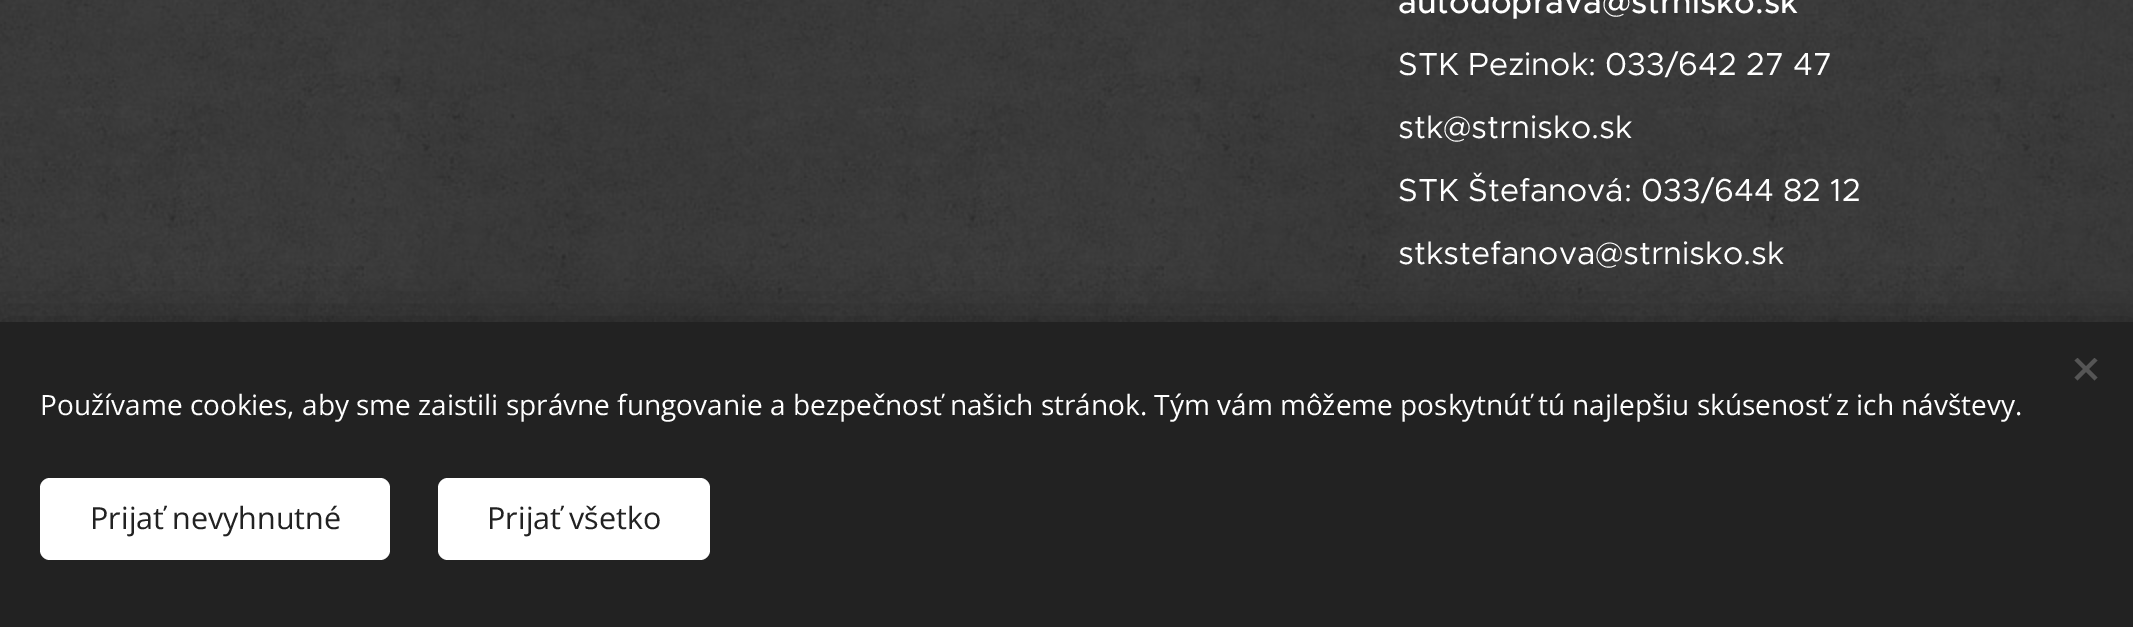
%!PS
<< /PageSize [2133 627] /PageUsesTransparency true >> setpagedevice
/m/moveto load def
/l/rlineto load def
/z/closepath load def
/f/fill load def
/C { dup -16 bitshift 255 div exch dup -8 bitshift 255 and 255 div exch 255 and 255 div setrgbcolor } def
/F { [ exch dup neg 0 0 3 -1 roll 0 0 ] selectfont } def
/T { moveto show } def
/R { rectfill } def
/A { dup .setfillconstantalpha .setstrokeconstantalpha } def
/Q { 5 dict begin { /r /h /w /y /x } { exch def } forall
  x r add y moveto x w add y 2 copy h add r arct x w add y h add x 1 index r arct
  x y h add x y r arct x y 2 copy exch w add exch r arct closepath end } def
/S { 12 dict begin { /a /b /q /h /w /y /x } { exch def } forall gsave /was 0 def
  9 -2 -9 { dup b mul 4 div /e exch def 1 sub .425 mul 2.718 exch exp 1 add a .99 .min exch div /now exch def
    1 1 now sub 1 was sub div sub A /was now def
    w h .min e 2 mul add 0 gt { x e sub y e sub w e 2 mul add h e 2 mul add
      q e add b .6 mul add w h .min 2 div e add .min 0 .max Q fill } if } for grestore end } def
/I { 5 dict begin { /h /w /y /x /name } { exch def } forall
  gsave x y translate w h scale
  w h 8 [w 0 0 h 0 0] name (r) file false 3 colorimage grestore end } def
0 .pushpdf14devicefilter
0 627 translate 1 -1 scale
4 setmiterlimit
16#FFFFFF C
0 0 2133 627 R
(1.rgb) 0 0 2133 322 I
/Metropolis-Medium 32.75 F
(autodoprava@strnisko.sk) 1398 13 T
/Metropolis-Regular 32 F
(STK Pezinok: 033/642 27 47) 1398 75 T
(stk@strnisko.sk) 1398 138 T
(STK Štefanová: 033/644 82 12) 1398 201 T
(stkstefanova@strnisko.sk) 1398 264 T
16#000000 C
0 322 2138 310 0 25 .33 S
16#222222 C
0 322 2133 305 R
16#555555 C
2074.5 377.5 m 20 -19.5 l 3 2.5 l -20 20 l z f
2077.5 358 m 20 19.5 l -3 3 l -20 -20 l z f
/OpenSans-Regular 28 F
16#FFFFFF C
(Používame cookies, aby sme zaistili správne fungovanie a bezpečnosť našich stránok. Tým vám môžeme poskytnúť tú najlepšiu skúsenosť z ich návštevy.) 40 415 T
40 478 350 82 10 Q f
/OpenSans-Regular 30.5 F
16#222222 C
(Prijať nevyhnutné) 90 529 T
16#FFFFFF C
438 478 272 82 10 Q f
16#222222 C
(Prijať všetko) 487 529 T
.poppdf14devicefilter showpage
